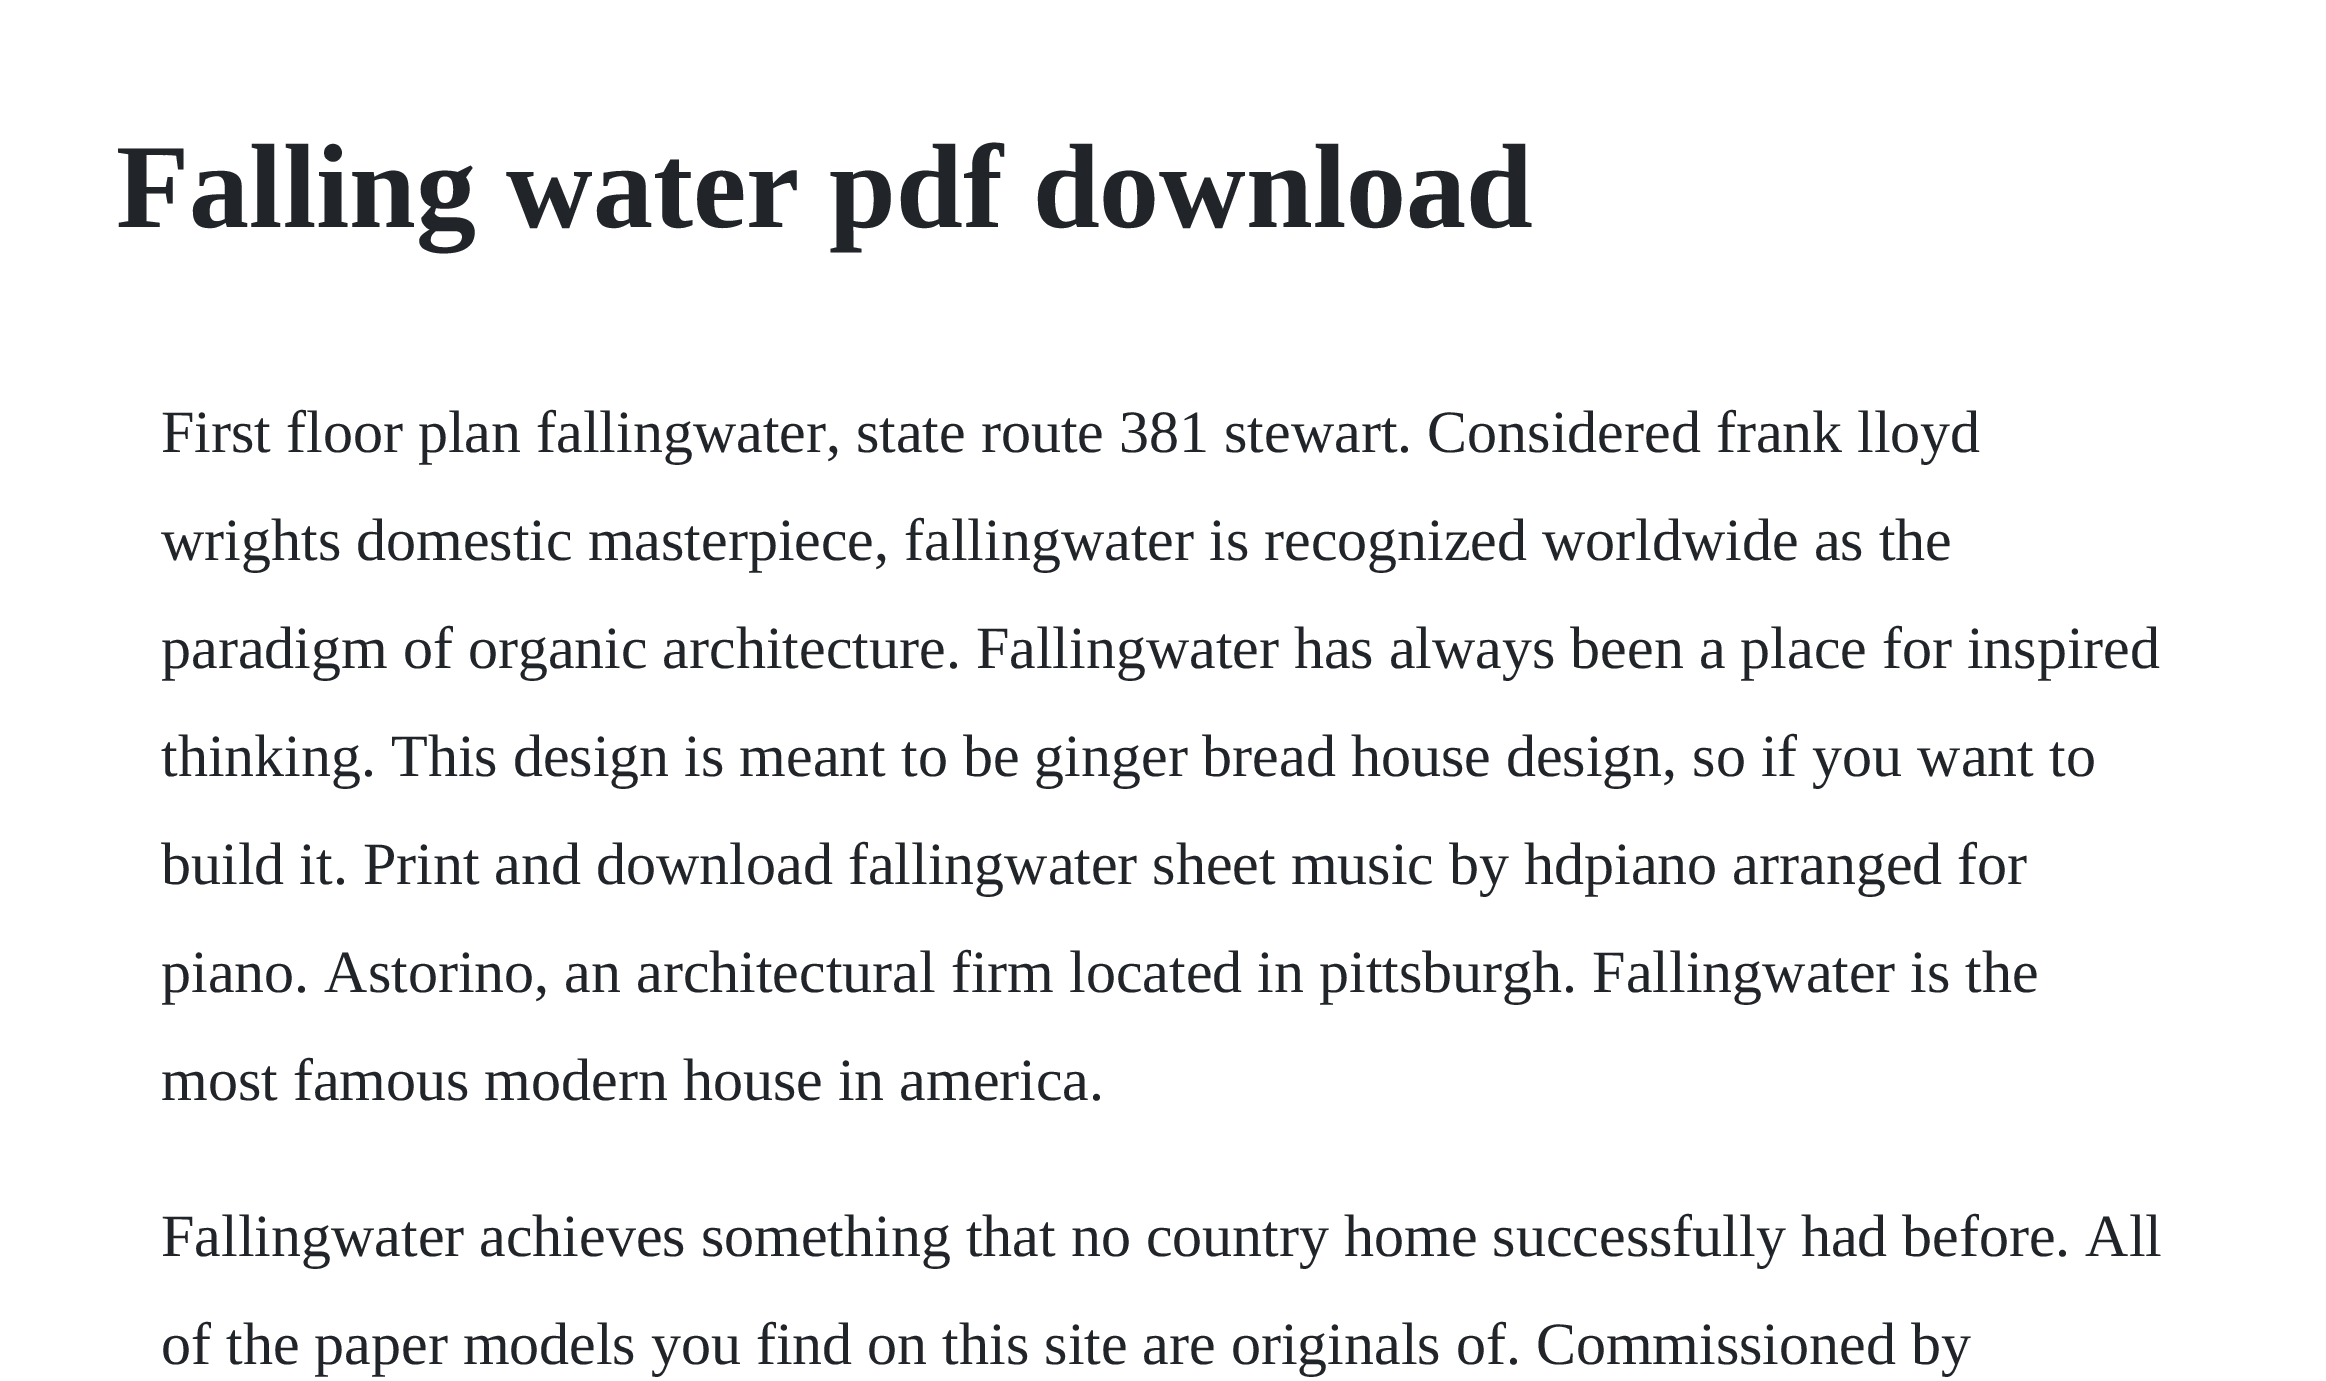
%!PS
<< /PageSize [2326 1381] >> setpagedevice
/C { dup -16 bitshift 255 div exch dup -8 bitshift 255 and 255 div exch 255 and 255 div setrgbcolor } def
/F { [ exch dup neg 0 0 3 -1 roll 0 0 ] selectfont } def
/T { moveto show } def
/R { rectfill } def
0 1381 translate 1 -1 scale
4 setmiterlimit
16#FFFFFF C
0 0 2326 1381 R
/LiberationSerif-Bold 120 F
16#212529 C
(Falling water pdf download) 116 227 T
/LiberationSerif-Regular 60 F
(First floor plan fallingwater, state route 381 stewart. Considered frank lloyd) 161 452 T
(wrights domestic masterpiece, fallingwater is recognized worldwide as the) 161 560 T
(paradigm of organic architecture. Fallingwater has always been a place for inspired) 161 668 T
(thinking. This design is meant to be ginger bread house design, so if you want to) 161 776 T
(build it. Print and download fallingwater sheet music by hdpiano arranged for) 161 884 T
(piano. Astorino, an architectural firm located in pittsburgh. Fallingwater is the) 161 992 T
(most famous modern house in america.) 161 1100 T
(Fallingwater achieves something that no country home successfully had before. All) 161 1256 T
(of the paper models you find on this site are originals of. Commissioned by) 161 1364 T
showpage
